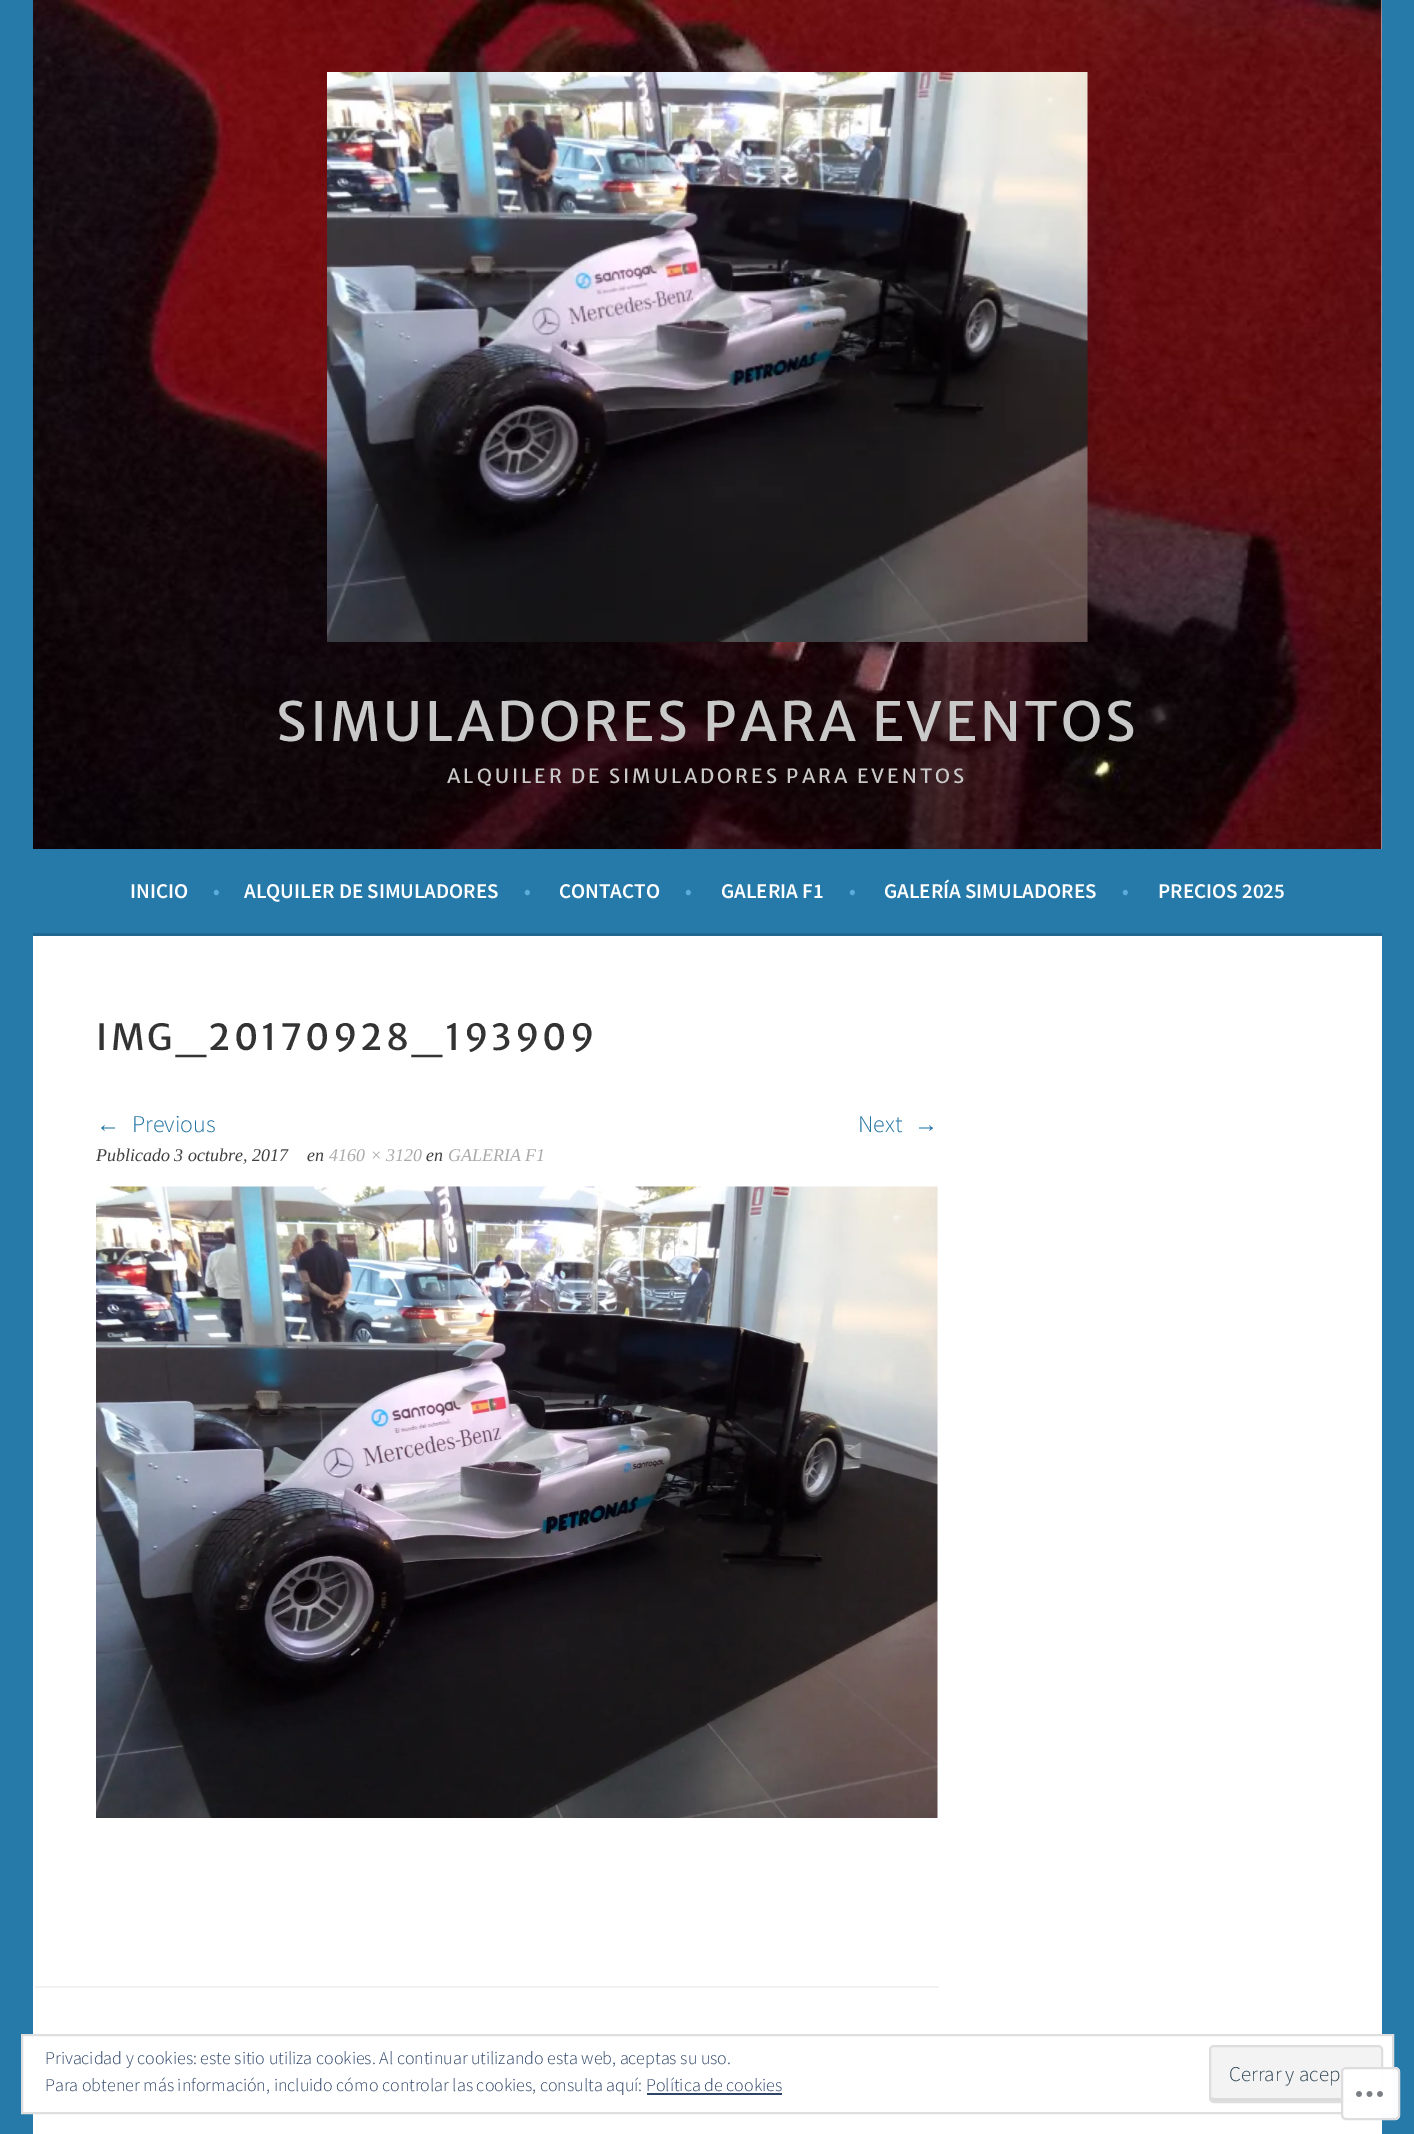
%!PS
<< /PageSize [1414 2134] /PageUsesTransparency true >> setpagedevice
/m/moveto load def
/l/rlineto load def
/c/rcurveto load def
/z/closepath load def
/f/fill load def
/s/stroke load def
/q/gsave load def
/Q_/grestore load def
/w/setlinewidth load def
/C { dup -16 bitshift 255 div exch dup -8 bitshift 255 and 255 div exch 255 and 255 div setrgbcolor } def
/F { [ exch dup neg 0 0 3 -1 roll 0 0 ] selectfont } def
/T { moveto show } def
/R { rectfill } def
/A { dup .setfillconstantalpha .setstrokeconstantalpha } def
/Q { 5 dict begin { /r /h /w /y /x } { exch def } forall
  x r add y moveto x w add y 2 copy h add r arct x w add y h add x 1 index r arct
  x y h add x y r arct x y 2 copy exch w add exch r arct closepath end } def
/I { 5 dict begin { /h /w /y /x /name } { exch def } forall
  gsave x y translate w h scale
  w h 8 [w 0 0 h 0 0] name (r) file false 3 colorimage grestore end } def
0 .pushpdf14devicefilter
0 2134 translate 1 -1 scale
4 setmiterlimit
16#267AAA C
0 0 1414 2134 R
16#FFFFFF C
1381 0 1 849 R
(1.rgb) 33 0 1349 849 I
(2.rgb) 327 72 761 570 I
/MerriweatherSans-Regular 54 F
16#C9C9C9 C
276 741 m 3 0 (SIMULADORES PARA EVENTOS) ashow
/MerriweatherSans-Regular 19.5 F
447 783 m 3 0 (ALQUILER DE SIMULADORES PARA EVENTOS) ashow
16#206891 C
33 933 1349 3 R
/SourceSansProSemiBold-SemiBold 21 F
16#FFFFFF C
(INICIO) 130 898 T
16#5CACDA C
(•) 213 898 T
16#FFFFFF C
(ALQUILER DE SIMULADORES) 244 898 T
16#5CACDA C
(•) 524 898 T
16#FFFFFF C
(CONTACTO) 559 898 T
16#5CACDA C
(•) 685 898 T
16#FFFFFF C
(GALERIA F1) 721 898 T
16#5CACDA C
(•) 849 898 T
16#FFFFFF C
(GALERÍA SIMULADORES) 884 898 T
16#5CACDA C
(•) 1122 898 T
16#FFFFFF C
(PRECIOS 2025) 1158 898 T
33 936 1349 1198 R
/MerriweatherSans-Regular 36 F
16#333333 C
96 1050 m 3 0 (IMG_20170928_193909) ashow
/LiberationSans-Regular 24 F
16#2374A3 C
(←) 96 1132 T
/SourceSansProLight-Light 24 F
(Previous) 132 1132 T
(Next) 858 1132 T
/LiberationSans-Regular 24 F
(→) 914 1132 T
/LiberationSerif-Italic 18 F
16#404040 C
(Publicado 3 octubre, 2017) 96 1161 T
(en) 307 1161 T
16#AAAAAA C
(4160 × 3120) 329 1161 T
16#404040 C
(en) 426 1161 T
16#AAAAAA C
(GALERIA F1) 448 1161 T
(3.rgb) 96 1186 842 632 I
16#F2F2F2 C
35 1986 904 2 R
16#FFFFFF C
22 2035 m 1371 0 l 0 78 l -1371 0 l z q f Q_
16#DEDEDE C
2 w
s
/SourceSansProLight-Light 18 F
16#2E4467 C
(Privacidad y cookies: este sitio utiliza cookies. Al continuar utilizando esta web, aceptas su uso.) 45 2064 T
(Para obtener más información, incluido cómo controlar las cookies, consulta aquí: Política de cookies) 45 2091 T
16#F3F3F3 C
1209 2045 174 58 5 Q f
16#DBDBDB C
1211 2097 m 0 2 l 0 2 1 3 3 3 c 165 0 l 2 0 3 -1 3 -3 c 0 -3 l 0 1 -2 2 -4 2 c -164 0 l z f
16#DEDEDE C
1210 2046 172 56 4 Q s
/SourceSansProLight-Light 21 F
16#2E4453 C
(Cerrar y acep) 1229 2081 T
16#2E4467 C
647 2093 135 2 R
0.98 A
16#FFFFFF C
1341 2067 59 53 5 Q f
16#DCDCDE C
1342 2068 57 51 4 Q s
1 A
(4.rgb) 1356 2091 27 6 I
.poppdf14devicefilter showpage
